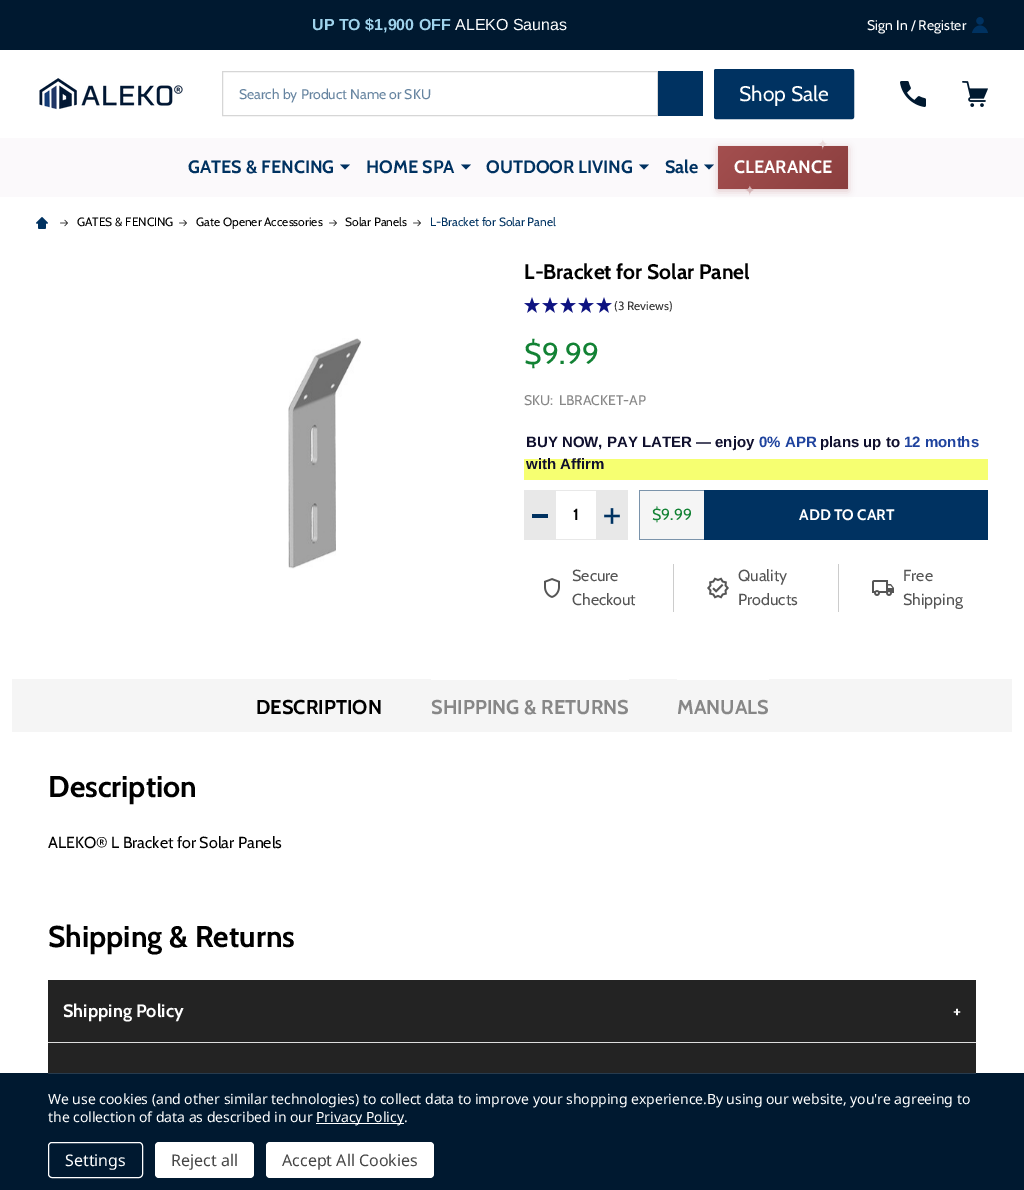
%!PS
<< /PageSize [1024 1190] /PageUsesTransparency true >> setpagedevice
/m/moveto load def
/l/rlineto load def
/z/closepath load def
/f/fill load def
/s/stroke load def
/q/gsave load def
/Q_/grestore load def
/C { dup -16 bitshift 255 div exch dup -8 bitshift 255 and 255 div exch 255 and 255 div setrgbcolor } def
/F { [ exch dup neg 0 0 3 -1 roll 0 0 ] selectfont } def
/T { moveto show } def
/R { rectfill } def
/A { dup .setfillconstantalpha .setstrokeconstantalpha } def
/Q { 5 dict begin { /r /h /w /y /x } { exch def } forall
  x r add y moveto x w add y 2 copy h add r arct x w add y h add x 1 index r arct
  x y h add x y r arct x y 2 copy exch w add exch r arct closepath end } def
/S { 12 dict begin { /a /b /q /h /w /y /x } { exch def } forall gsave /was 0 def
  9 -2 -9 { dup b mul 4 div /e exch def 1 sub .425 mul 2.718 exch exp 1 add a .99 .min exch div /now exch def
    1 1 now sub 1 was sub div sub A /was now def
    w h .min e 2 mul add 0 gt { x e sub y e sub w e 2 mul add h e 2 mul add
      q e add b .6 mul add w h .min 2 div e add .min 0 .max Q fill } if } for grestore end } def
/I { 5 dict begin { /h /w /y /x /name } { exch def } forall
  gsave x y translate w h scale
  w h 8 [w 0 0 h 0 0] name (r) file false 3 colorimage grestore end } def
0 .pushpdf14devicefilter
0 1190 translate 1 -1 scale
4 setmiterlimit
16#FFFFFF C
0 0 1024 1190 R
16#001930 C
0 0 1024 50 R
/LiberationSans-Bold 16 F
16#A0D3EC C
(UP TO $1,900 OFF) 312 30 T
/LiberationSans-Regular 16 F
16#FFFFFF C
(ALEKO Saunas) 455 30 T
/Cabin-Regular 14 F
(Sign In / Register) 867 30 T
(1.rgb) 972 17 16 16 I
(2.rgb) 39 78 144 32 I
16#D6D6D6 C
222.5 71.5 435 44 rectstroke
16#6684A0 C
(Search by Product Name or SKU) 239 99 T
16#003261 C
658 71 45 45 R
714.5 69.5 139 49 1.5 Q q f Q_
s
/Cabin-Regular 21 F
16#FFFFFF C
(Shop Sale) 739 101 T
(3.rgb) 900 81 26 26 I
(4.rgb) 962 81 26 26 I
16#FBF9FB C
0 138 1024 59 R
/Cabin-Bold 18 F
16#003261 C
(GATES & FENCING) 188 173 T
340 164.5 m 5 5 l 5 -5 l z f
(HOME SPA) 366 173 T
461 164.5 m 5 5 l 5 -5 l z f
(OUTDOOR LIVING) 486 173 T
639 164.5 m 5 5 l 5 -5 l z f
(Sale) 665 173 T
704 164.5 m 5 5 l 5 -5 l z f
16#A44F4F C
718 148 130 43 0 4 .3 S
q 718 146 m 130 0 l 0 43 l -130 0 l z clip newpath
<< /ShadingType 2 /ColorSpace /DeviceRGB /Coords [740 124 826 211] /Extend [true true] /Function << /FunctionType 2 /Domain [0 1] /C0 [.643 .31 .31] /C1 [.545 .247 .247] /N 1 >> >> shfill Q_
/DejaVuSans-Regular 14 F
16#EBDDDE C
(✦) 817 149 T
/Cabin-Bold 18 F
16#FFFFFF C
(CLEARANCE) 734 173 T
/DejaVuSans-Regular 14 F
16#D6B5B7 C
(✦) 744 195 T
(5.rgb) 36 217 12 12 I
(6.rgb) 60 219 8 8 I
/Cabin-Regular 12 F
16#000000 C
(GATES & FENCING) 77 226 T
(6.rgb) 179 219 8 8 I
(Gate Opener Accessories) 196 226 T
(6.rgb) 329 219 8 8 I
(Solar Panels) 345 226 T
(6.rgb) 413 219 8 8 I
16#003261 C
(L-Bracket for Solar Panel) 430 226 T
/Cabin-Bold 21 F
16#000000 C
(L-Bracket for Solar Panel) 524 279 T
(7.rgb) 524 297 16 16 I
(7.rgb) 542 297 16 16 I
(7.rgb) 560 297 16 16 I
(7.rgb) 578 297 16 16 I
(7.rgb) 596 297 16 16 I
/Cabin-Regular 12 F
16#333333 C
(\(3 Reviews\)) 614 310 T
/Cabin-Regular 30 F
16#128234 C
($9.99) 524 364 T
(8.rgb) 288 338 73 231 I
/Cabin-Regular 14 F
16#878787 C
(SKU:) 524 405 T
(LBRACKET-AP) 559 405 T
16#F6FF71 C
524 459 464 21 R
/LiberationSans-Bold 15 F
16#0F0F2D C
(BUY NOW, PAY LATER — enjoy) 526 447 T
16#1F439E C
(0% APR) 759 447 T
16#0F0F2D C
(plans up to) 820 447 T
16#1F439E C
(12 months) 904 447 T
16#0F0F2D C
(with Affirm) 526 469 T
16#E8E8E8 C
524 490 32 50 R
16#003261 C
532 514 16 4 R
16#E8E8E8 C
556 490 40 1 R
556 539 40 1 R
/Cabin-Bold 16 F
16#000000 C
(1) 573 520 T
16#E8E8E8 C
596 490 32 50 R
(9.rgb) 604 508 16 16 I
16#F5F5F5 C
639 490 65 50 R
16#7B94AB C
639 490 m 65 0 l 0 1 l -64 0 l z f
704 540 m -65 0 l 1 -1 l 64 0 l z f
0.5 A
16#003261 C
639 540 m 0 -50 l 1 1 l 0 48 l z f
/Cabin-Regular 16 F
1 A
16#128234 C
($9.99) 652 520 T
16#003261 C
704 490 284 50 R
/Cabin-Bold 15.25 F
16#FFFFFF C
(ADD TO CART) 799 520 T
16#CCCCCC C
673 564 1 48 R
(10.rgb) 544 578 16 20 I
/Cabin-Regular 16 F
16#555555 C
(Secure) 572 581 T
(Checkout) 572 605 T
16#CCCCCC C
838 564 1 48 R
(11.rgb) 707 577 22 22 I
16#555555 C
(Quality) 738 581 T
(Products) 738 605 T
(12.rgb) 872 580 22 16 I
(Free) 903 581 T
(Shipping) 903 605 T
16#F5F5F5 C
12 679 1000 53 R
/Cabin-Bold 20 F
16#000000 C
(DESCRIPTION) 256 714 T
16#FFFFFF C
431 679 198 1 R
16#878787 C
(SHIPPING & RETURNS) 431 714 T
16#FFFFFF C
677 679 92 1 R
16#878787 C
(MANUALS) 677 714 T
/Cabin-Bold 30 F
16#000000 C
(Description) 48 797 T
/Cabin-Regular 16 F
(ALEKO® L Bracket for Solar Panels) 48 848 T
/Cabin-Bold 30 F
(Shipping & Returns) 48 947 T
16#DDDDDD C
48 1042 928 1 R
16#232323 C
48 980 928 62 R
/Cabin-Bold 18 F
16#FFFFFF C
(Shipping Policy) 63 1017 T
(+) 953 1017 T
16#232323 C
48 1043 928 30 R
16#001930 C
0 1073 1024 117 R
16#273B4E C
48 1073 928 1 R
/NotoSans-Regular 14 F
16#FFFFFF C
48 1104 m -.05 0 (We use cookies \(and other similar technologies\) to collect data to improve your shopping experience.By using our website, you're agreeing to) ashow
48 1122 m -.05 0 (the collection of data as described in our) ashow
316 1123 88 1 R
316 1122 m -.05 0 (Privacy Policy.) ashow
48.5 1142.5 94 35 3.5 Q s
/NotoSans-Regular 16 F
(Settings) 65 1166 T
155 1142 99 36 4 Q f
16#454545 C
(Reject all) 171 1166 T
16#FFFFFF C
266 1142 168 36 4 Q f
16#454545 C
(Accept All Cookies) 282 1166 T
.poppdf14devicefilter showpage
